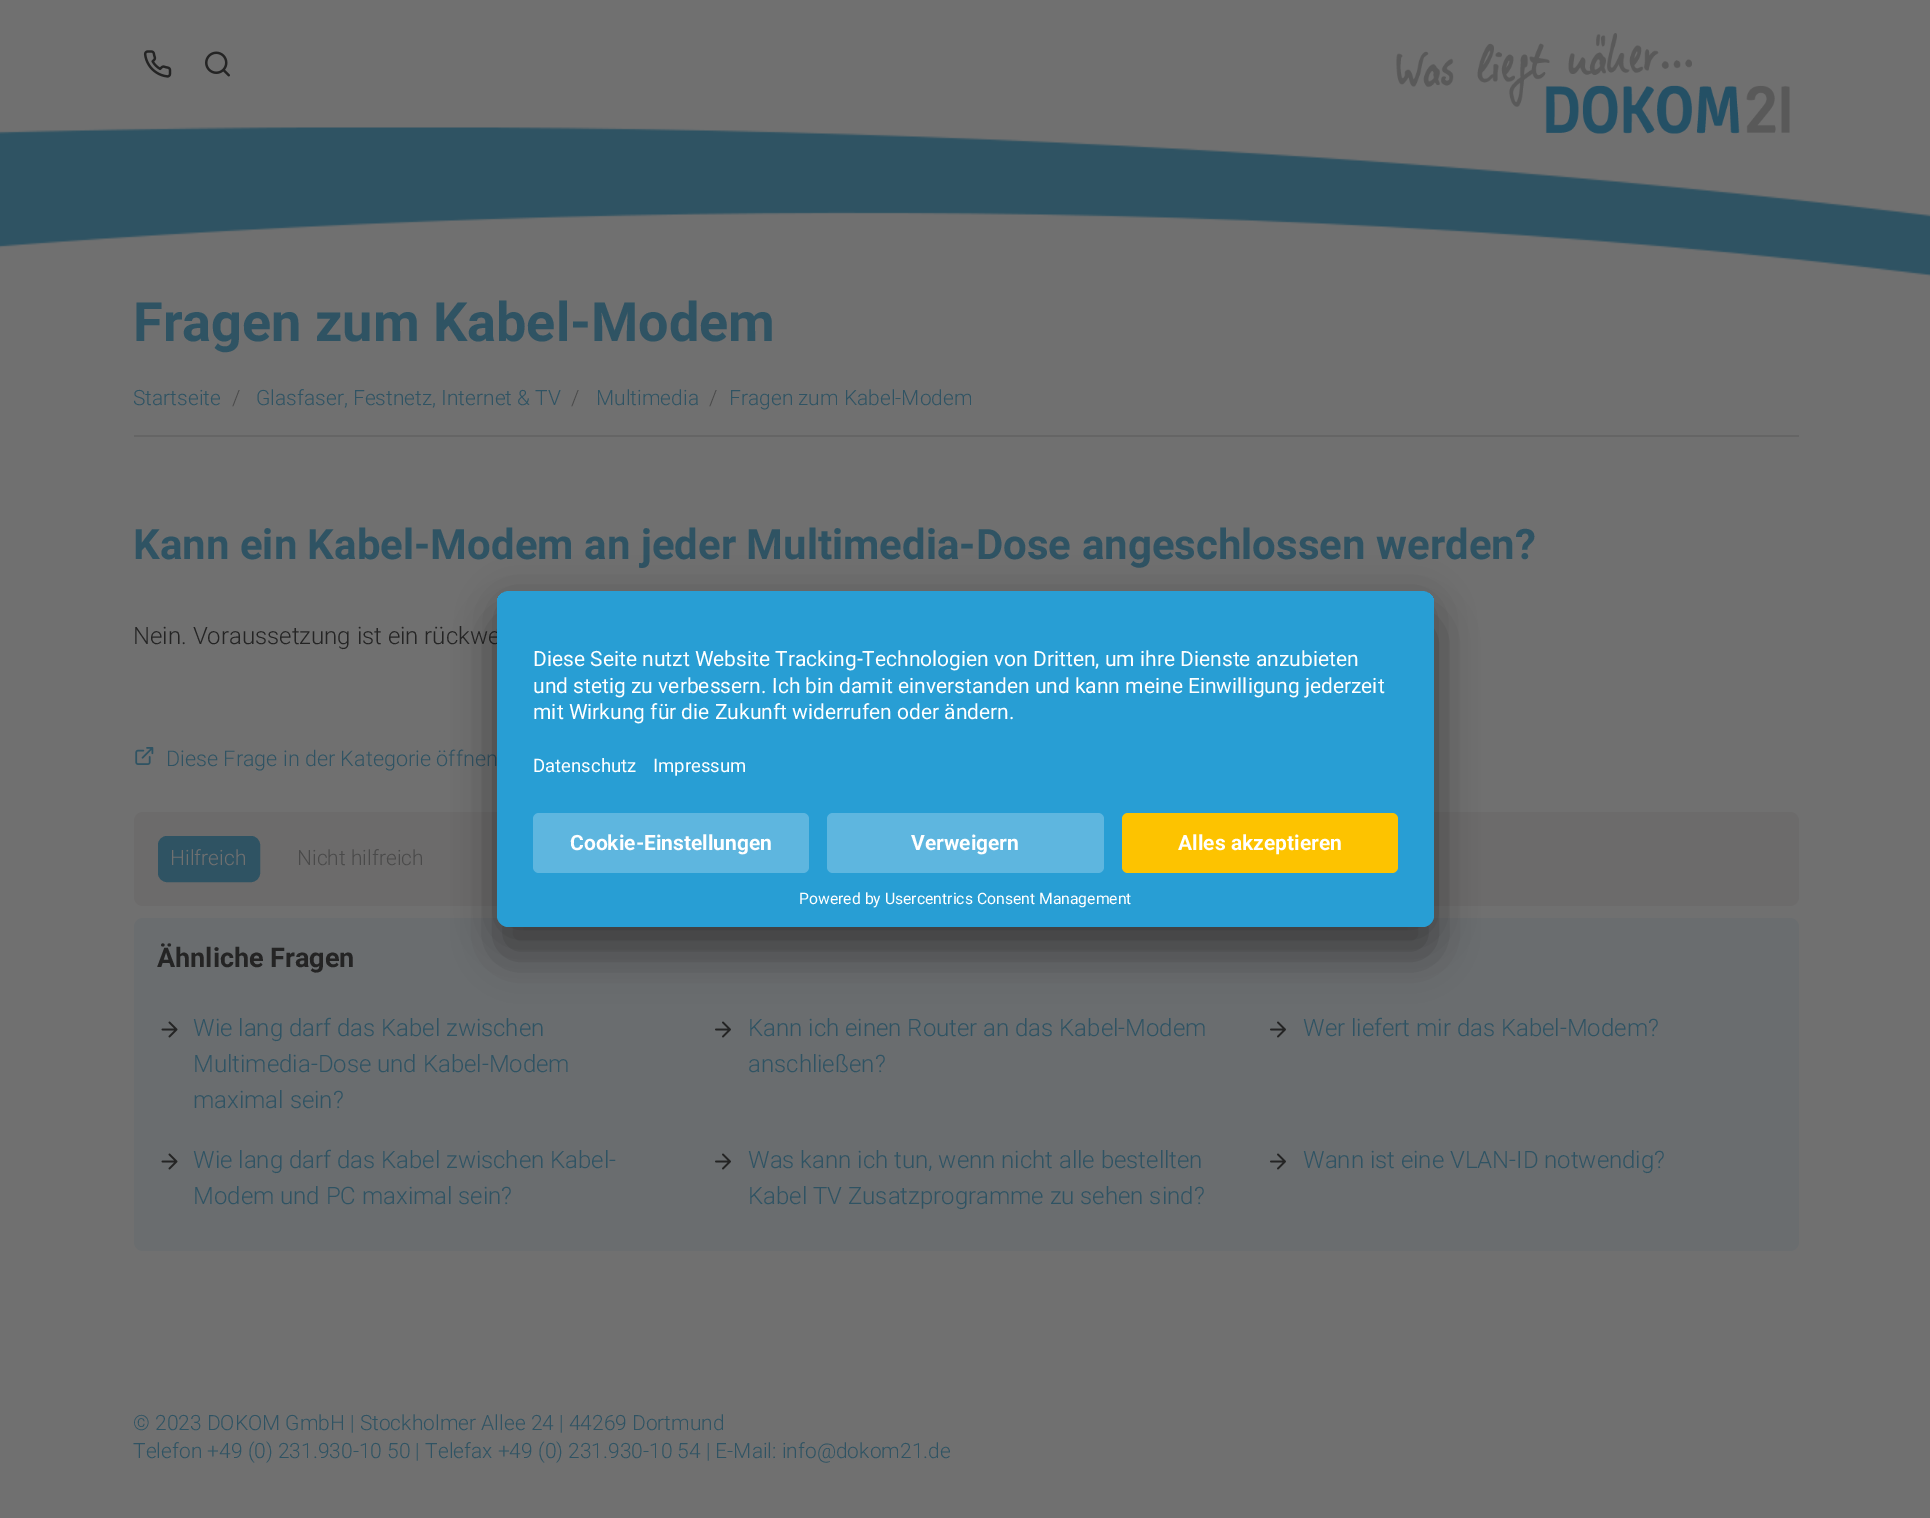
%!PS
<< /PageSize [1930 1518] /PageUsesTransparency true >> setpagedevice
/m/moveto load def
/l/rlineto load def
/c/rcurveto load def
/z/closepath load def
/f/fill load def
/s/stroke load def
/q/gsave load def
/Q_/grestore load def
/w/setlinewidth load def
/C { dup -16 bitshift 255 div exch dup -8 bitshift 255 and 255 div exch 255 and 255 div setrgbcolor } def
/F { [ exch dup neg 0 0 3 -1 roll 0 0 ] selectfont } def
/T { moveto show } def
/R { rectfill } def
/A { dup .setfillconstantalpha .setstrokeconstantalpha } def
/Q { 5 dict begin { /r /h /w /y /x } { exch def } forall
  x r add y moveto x w add y 2 copy h add r arct x w add y h add x 1 index r arct
  x y h add x y r arct x y 2 copy exch w add exch r arct closepath end } def
/S { 12 dict begin { /a /b /q /h /w /y /x } { exch def } forall gsave /was 0 def
  9 -2 -9 { dup b mul 4 div /e exch def 1 sub .425 mul 2.718 exch exp 1 add a .99 .min exch div /now exch def
    1 1 now sub 1 was sub div sub A /was now def
    w h .min e 2 mul add 0 gt { x e sub y e sub w e 2 mul add h e 2 mul add
      q e add b .6 mul add w h .min 2 div e add .min 0 .max Q fill } if } for grestore end } def
/I { 5 dict begin { /h /w /y /x /name } { exch def } forall
  gsave x y translate w h scale
  w h 8 [w 0 0 h 0 0] name (r) file false 3 colorimage grestore end } def
0 .pushpdf14devicefilter
0 1518 translate 1 -1 scale
4 setmiterlimit
16#707070 C
0 0 1930 1518 R
(1.rgb) 143 50 29 28 I
(2.rgb) 205 51 25 26 I
(4.rgb) 0 127 1930 150 I
(3.rgb) 1396 33 394 101 I
/Roboto-Bold 54 F
16#2F5363 C
(Fragen zum Kabel-Modem) 133 341 T
16#656565 C
134 435 1665 2 R
/Roboto-Light 21 F
16#2F5363 C
(Startseite) 133 405 T
16#4A4A4A C
(/) 232 405 T
16#2F5363 C
(Glasfaser, Festnetz, Internet & TV) 256 405 T
16#4A4A4A C
(/) 571 405 T
16#2F5363 C
(Multimedia) 596 405 T
16#4A4A4A C
(/) 709 405 T
16#2F5363 C
(Fragen zum Kabel-Modem) 729 405 T
/Roboto-Bold 42 F
(Kann ein Kabel-Modem an jeder Multimedia-Dose angeschlossen werden?) 133 559 T
/Roboto-Light 24 F
16#242424 C
(Nein. Voraussetzung ist ein rückwe) 133 644 T
(5.rgb) 135 747 19 18 I
/Roboto-Light 21.6 F
16#2F5363 C
(Diese Frage in der Kategorie öffnen) 166 766 T
16#6C6B6B C
134 812 1665 94 9 Q f
16#2F5363 C
159 837 100 44 8 Q q f Q_
2 w
s
/Roboto-Light 21 F
16#707070 C
(Hilfreich) 170 865 T
16#4A4A4A C
(Nicht hilfreich) 297 865 T
16#6A6D6F C
134 918 1665 333 9 Q f
/Roboto-Bold 27 F
16#242424 C
(Ähnliche Fragen) 157 967 T
(6.rgb) 161 1021 17 17 I
/Roboto-Light 24 F
16#2F5363 C
(Wie lang darf das Kabel zwischen) 193 1036 T
(Multimedia-Dose und Kabel-Modem) 193 1072 T
(maximal sein?) 193 1108 T
(7.rgb) 715 1021 16 17 I
(Kann ich einen Router an das Kabel-Modem) 748 1036 T
(anschließen?) 748 1072 T
(7.rgb) 1270 1021 16 17 I
(Wer liefert mir das Kabel-Modem?) 1303 1036 T
(6.rgb) 161 1153 17 17 I
(Wie lang darf das Kabel zwischen Kabel-) 193 1168 T
(Modem und PC maximal sein?) 193 1204 T
(7.rgb) 715 1153 16 17 I
(Was kann ich tun, wenn nicht alle bestellten) 748 1168 T
(Kabel TV Zusatzprogramme zu sehen sind?) 748 1204 T
(7.rgb) 1270 1153 16 17 I
(Wann ist eine VLAN-ID notwendig?) 1303 1168 T
16#000000 C
497 621 937 336 12 21 .3 S
497 599 937 336 12 19.5 .22 S
16#289ED4 C
497 591 937 336 12 Q f
q
497 591 937 336 12 Q clip newpath
509 591 m 913 0 l 6.5 0 12 5.5 12 12 c 0 198 l -937 0 l 0 -198 l 0 -6.5 5.5 -12 12 -12 c z clip newpath
497 593 937 208 R
Q_
/Roboto-Regular 21 F
16#FFFFFF C
(Diese Seite nutzt Website Tracking-Technologien von Dritten, um ihre Dienste anzubieten) 533 666 T
(und stetig zu verbessern. Ich bin damit einverstanden und kann meine Einwilligung jederzeit) 533 693 T
(mit Wirkung für die Zukunft widerrufen oder ändern.) 533 719 T
/Roboto-Regular 18.5 F
(Datenschutz) 533 772 T
(Impressum) 653 772 T
16#289ED4 C
497 801 m 937 0 l 0 114 l 0 6.5 -5.5 12 -12 12 c -913 0 l -6.5 0 -12 -5.5 -12 -12 c z f
16#5EB6DF C
533 813 276 60 6 Q f
/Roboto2-Bold 21 F
16#FFFFFF C
(Cookie-Einstellungen) 570 850 T
16#5EB6DF C
827 813 277 60 6 Q f
16#FFFFFF C
(Verweigern) 911 850 T
16#FDC300 C
1122 813 276 60 6 Q f
16#FFFFFF C
(Alles akzeptieren) 1178 850 T
/Roboto-Regular 15.75 F
(Powered by Usercentrics Consent Management) 799 904 T
/Roboto-Light 21 F
16#2F5363 C
(© 2023 DOKOM GmbH | Stockholmer Allee 24 | 44269 Dortmund) 133 1430 T
(Telefon +49 \(0\) 231.930-10 50 | Telefax +49 \(0\) 231.930-10 54 | E-Mail: info@dokom21.de) 133 1458 T
.poppdf14devicefilter showpage
